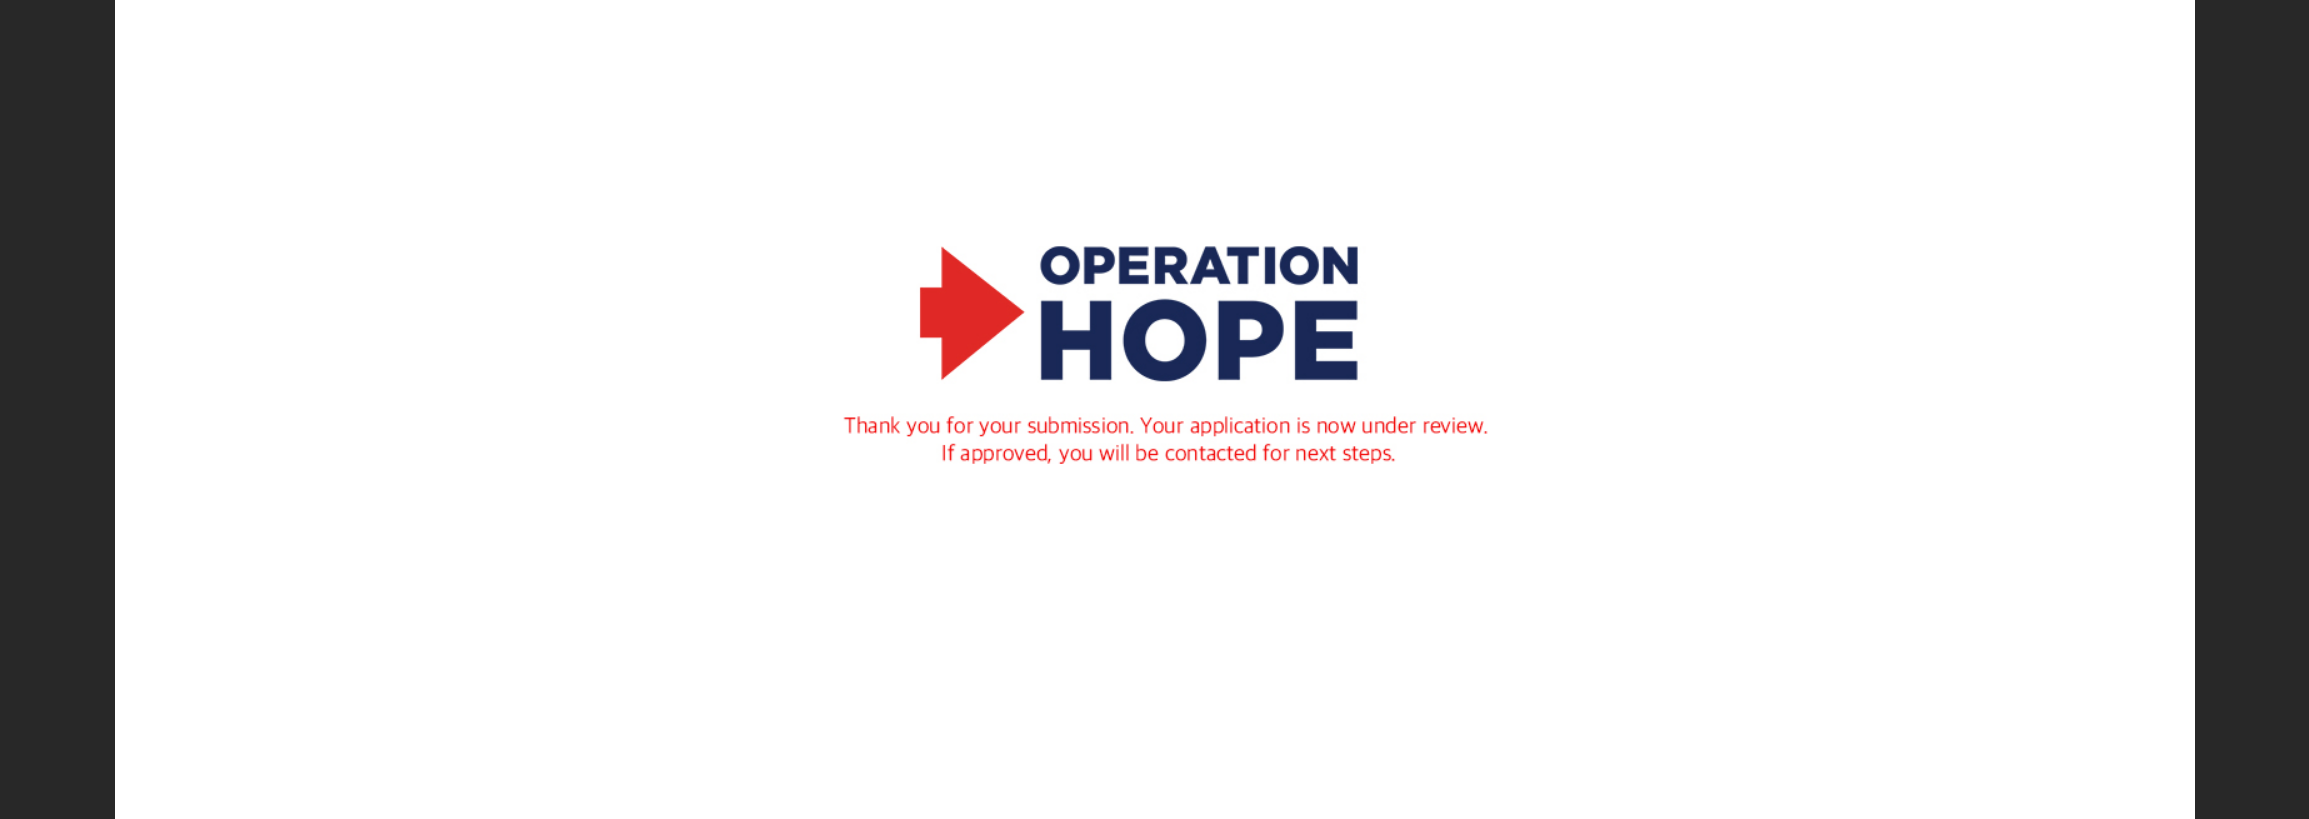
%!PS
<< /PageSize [2309 819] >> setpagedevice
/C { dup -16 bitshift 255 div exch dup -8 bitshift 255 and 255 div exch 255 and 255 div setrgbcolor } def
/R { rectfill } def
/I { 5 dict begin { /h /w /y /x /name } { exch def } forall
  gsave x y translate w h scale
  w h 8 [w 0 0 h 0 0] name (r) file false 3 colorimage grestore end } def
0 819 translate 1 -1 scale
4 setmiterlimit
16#282828 C
0 0 2309 819 R
16#FFFFFF C
115 0 2080 819 R
(1.rgb) 843 246 645 218 I
showpage
